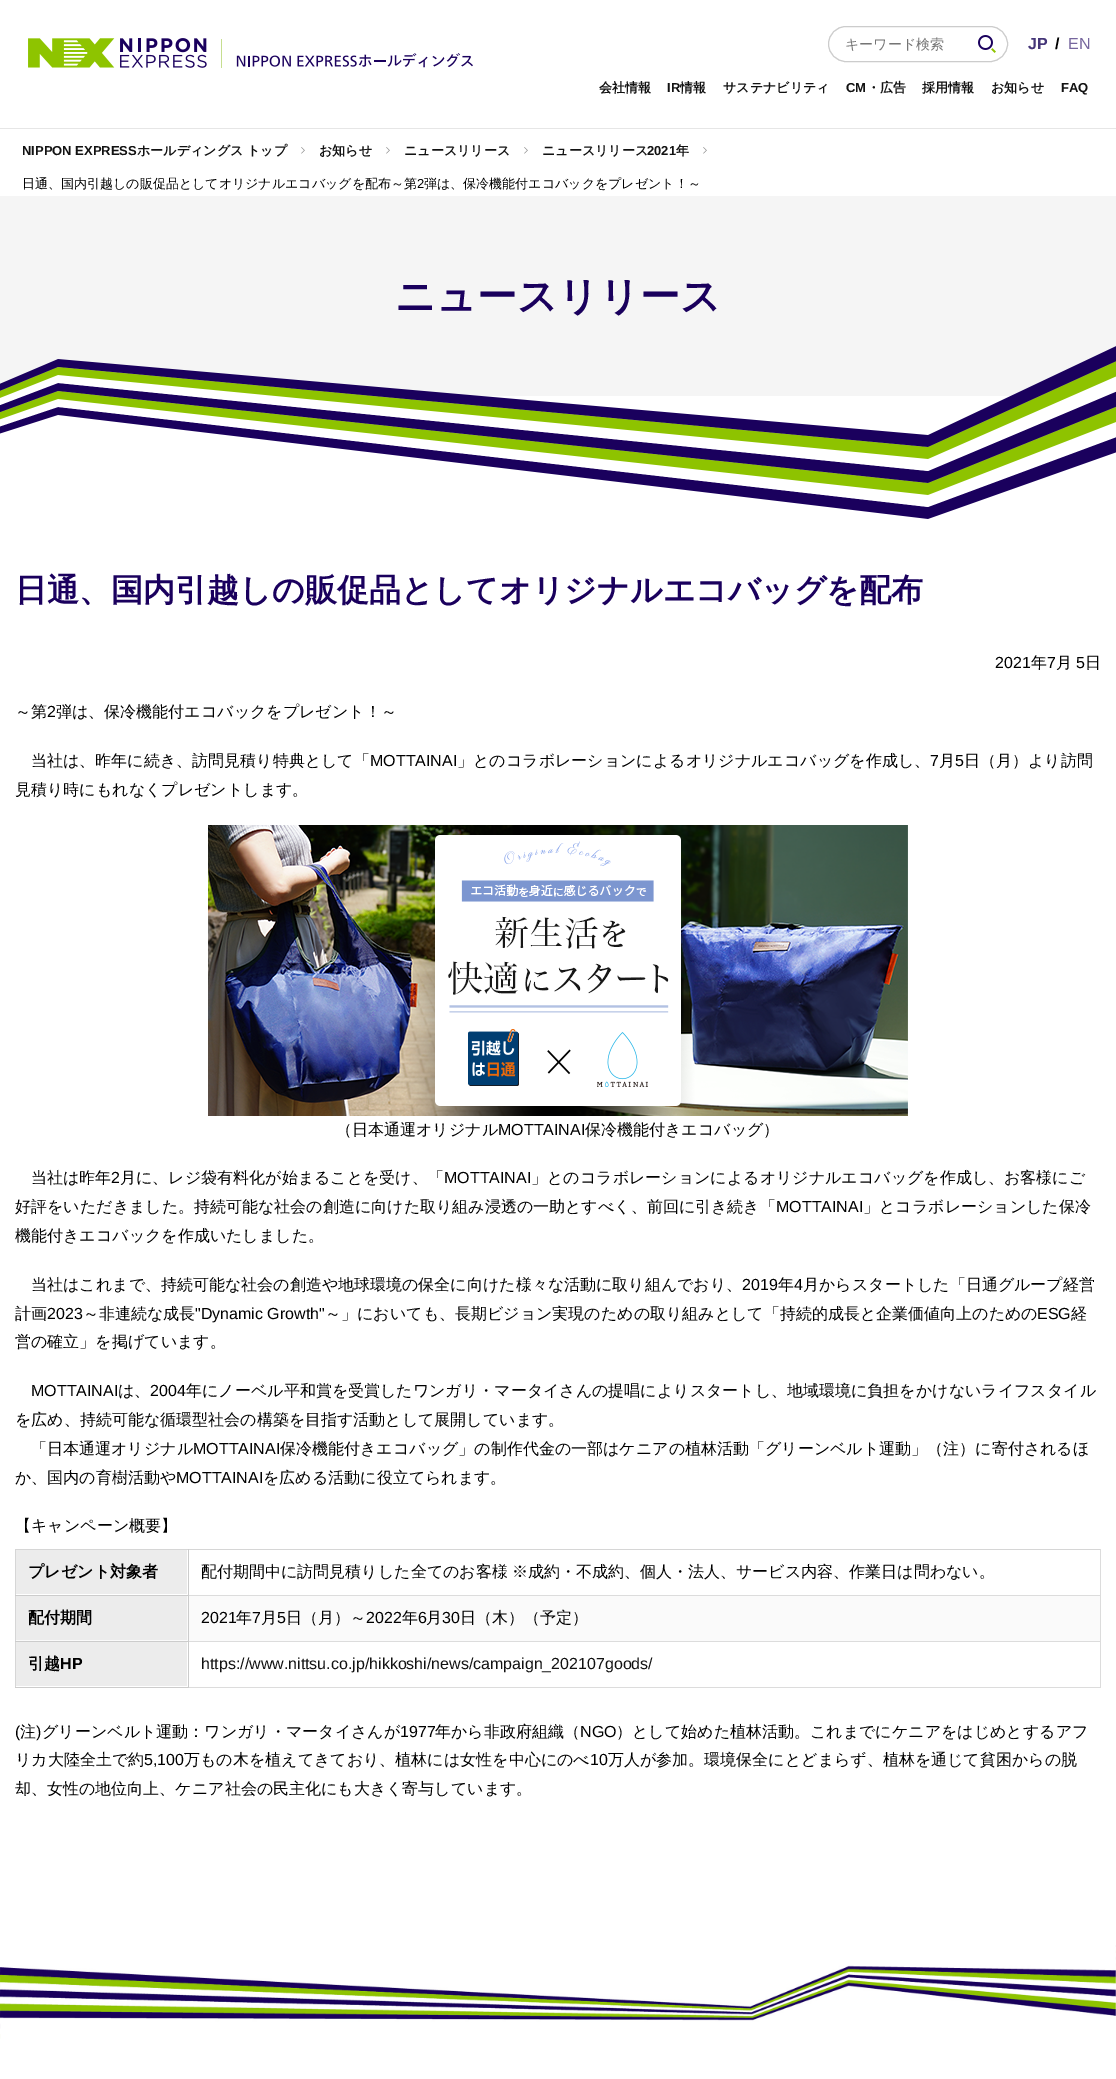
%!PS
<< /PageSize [1116 2079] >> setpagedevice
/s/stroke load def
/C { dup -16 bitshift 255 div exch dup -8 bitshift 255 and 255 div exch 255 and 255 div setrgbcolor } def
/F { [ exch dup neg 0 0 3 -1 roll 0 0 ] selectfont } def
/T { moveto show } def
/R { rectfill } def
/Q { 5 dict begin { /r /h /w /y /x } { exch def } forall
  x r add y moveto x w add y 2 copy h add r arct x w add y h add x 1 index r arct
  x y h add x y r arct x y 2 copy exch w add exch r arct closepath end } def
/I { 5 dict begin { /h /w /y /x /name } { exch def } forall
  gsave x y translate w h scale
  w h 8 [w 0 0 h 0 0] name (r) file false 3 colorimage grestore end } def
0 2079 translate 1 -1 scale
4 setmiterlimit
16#FFFFFF C
0 0 1116 2079 R
(1.rgb) 28 38 445 30 I
16#CCCCCC C
828.5 26.5 179 35 17.5 Q s
/WenQuanYiZenHei-Medium 14 F
16#757575 C
(キーワード検索) 845 49 T
(2.rgb) 978 35 18 18 I
/LiberationSans-Bold 16 F
16#453679 C
(JP) 1028 49 T
16#000000 C
(/) 1055 49 T
/LiberationSans-Regular 16 F
16#76669E C
(EN) 1068 49 T
/WenQuanYiZenHei-Bold 13 F
16#121212 C
(会社情報) 599 92 T
/LiberationSans-Bold 13 F
(IR) 667 92 T
/WenQuanYiZenHei-Bold 13 F
(情報) 680 92 T
(サステナビリティ) 723 92 T
/LiberationSans-Bold 13 F
(CM) 846 92 T
/WenQuanYiZenHei-Bold 13 F
(・広告) 867 92 T
(採用情報) 922 92 T
(お知らせ) 991 92 T
/LiberationSans-Bold 13 F
(FAQ) 1061 92 T
16#E6E6E6 C
0 128 1116 1 R
16#121212 C
(NIPPON EXPRESS) 22 155 T
/WenQuanYiZenHei-Bold 13 F
(ホールディングス トップ) 137 155 T
(3.rgb) 301 147 4 7 I
(お知らせ) 319 155 T
(3.rgb) 386 147 4 7 I
(ニュースリリース) 404 155 T
(3.rgb) 524 147 4 7 I
(ニュースリリース) 542 155 T
/LiberationSans-Bold 13 F
(2021) 647 155 T
/WenQuanYiZenHei-Bold 13 F
(年) 676 155 T
(3.rgb) 703 147 4 7 I
/WenQuanYiZenHei-Medium 13 F
16#000000 C
(日通、国内引越しの販促品としてオリジナルエコバッグを配布～第) 22 188 T
/LiberationSans-Regular 13 F
(2) 417 188 T
/WenQuanYiZenHei-Medium 13 F
(弾は、保冷機能付エコバックをプレゼント！～) 424 188 T
16#F5F5F5 C
0 196 1116 200 R
/WenQuanYiZenHei-Bold 40 F
16#1A005D C
(ニュースリリース) 395 310 T
(4.rgb) 0 346 1116 173 I
/WenQuanYiZenHei-Bold 32 F
(日通、国内引越しの販促品としてオリジナルエコバッグを配布) 15 601 T
/LiberationSans-Regular 16 F
16#000000 C
(2021) 995 668 T
/WenQuanYiZenHei-Medium 16 F
(年) 1031 668 T
/LiberationSans-Regular 16 F
(7) 1047 668 T
/WenQuanYiZenHei-Medium 16 F
(月) 1056 668 T
/LiberationSans-Regular 16 F
(5) 1076 668 T
/WenQuanYiZenHei-Medium 16 F
(日) 1085 668 T
(～第) 15 717 T
/LiberationSans-Regular 16 F
(2) 47 717 T
/WenQuanYiZenHei-Medium 16 F
(弾は、保冷機能付エコバックをプレゼント！～) 56 717 T
(当社は、昨年に続き、訪問見積り特典として「) 31 766 T
/LiberationSans-Regular 16 F
(MOTTAINAI) 370 766 T
/WenQuanYiZenHei-Medium 16 F
(」とのコラボレーションによるオリジナルエコバッグを作成し、) 457 766 T
/LiberationSans-Regular 16 F
(7) 930 766 T
/WenQuanYiZenHei-Medium 16 F
(月) 939 766 T
/LiberationSans-Regular 16 F
(5) 955 766 T
/WenQuanYiZenHei-Medium 16 F
(日（月）より訪問) 964 766 T
(見積り時にもれなくプレゼントします。) 15 795 T
(5.rgb) 208 825 700 291 I
(（日本通運オリジナル) 336 1135 T
/LiberationSans-Regular 16 F
(MOTTAINAI) 498 1135 T
/WenQuanYiZenHei-Medium 16 F
(保冷機能付きエコバッグ）) 585 1135 T
(当社は昨年) 31 1183 T
/LiberationSans-Regular 16 F
(2) 111 1183 T
/WenQuanYiZenHei-Medium 16 F
(月に、レジ袋有料化が始まることを受け、「) 120 1183 T
/LiberationSans-Regular 16 F
(MOTTAINAI) 444 1183 T
/WenQuanYiZenHei-Medium 16 F
(」とのコラボレーションによるオリジナルエコバッグを作成し、お客様にご) 531 1183 T
(好評をいただきました。持続可能な社会の創造に向けた取り組み浸透の一助とすべく、前回に引き続き「) 15 1212 T
/LiberationSans-Regular 16 F
(MOTTAINAI) 776 1212 T
/WenQuanYiZenHei-Medium 16 F
(」とコラボレーションした保冷) 863 1212 T
(機能付きエコバックを作成いたしました。) 15 1241 T
(当社はこれまで、持続可能な社会の創造や地球環境の保全に向けた様々な活動に取り組んでおり、) 31 1290 T
/LiberationSans-Regular 16 F
(2019) 742 1290 T
/WenQuanYiZenHei-Medium 16 F
(年) 778 1290 T
/LiberationSans-Regular 16 F
(4) 794 1290 T
/WenQuanYiZenHei-Medium 16 F
(月からスタートした「日通グループ経営) 803 1290 T
(計画) 15 1319 T
/LiberationSans-Regular 16 F
(2023) 47 1319 T
/WenQuanYiZenHei-Medium 16 F
(～非連続な成長) 83 1319 T
/LiberationSans-Regular 16 F
("Dynamic Growth") 195 1319 T
/WenQuanYiZenHei-Medium 16 F
(～」においても、長期ビジョン実現のための取り組みとして「持続的成長と企業価値向上のための) 325 1319 T
/LiberationSans-Regular 16 F
(ESG) 1037 1319 T
/WenQuanYiZenHei-Medium 16 F
(経) 1071 1319 T
(営の確立」を掲げています。) 15 1347 T
/LiberationSans-Regular 16 F
(MOTTAINAI) 31 1396 T
/WenQuanYiZenHei-Medium 16 F
(は、) 118 1396 T
/LiberationSans-Regular 16 F
(2004) 150 1396 T
/WenQuanYiZenHei-Medium 16 F
(年にノーベル平和賞を受賞したワンガリ・マータイさんの提唱によりスタートし、地域環境に負担をかけないライフスタイル) 186 1396 T
(を広め、持続可能な循環型社会の構築を目指す活動として展開しています。) 15 1425 T
(「日本通運オリジナル) 31 1454 T
/LiberationSans-Regular 16 F
(MOTTAINAI) 193 1454 T
/WenQuanYiZenHei-Medium 16 F
(保冷機能付きエコバッグ」の制作代金の一部はケニアの植林活動「グリーンベルト運動」（注）に寄付されるほ) 280 1454 T
(か、国内の育樹活動や) 15 1483 T
/LiberationSans-Regular 16 F
(MOTTAINAI) 176 1483 T
/WenQuanYiZenHei-Medium 16 F
(を広める活動に役立てられます。) 263 1483 T
(【キャンペーン概要】) 15 1531 T
16#D6D6D6 C
15 1549 1086 1 R
15 1549 1 139 R
16#ECECEC C
16 1550 171 44 R
16#FAFAFA C
16 1596 1084 45 R
16#DCDCDC C
1100 1549 1 139 R
188 1687 913 1 R
16#CCCCCC C
188 1641 1 47 R
16#DCDCDC C
188 1641 913 1 R
16#CCCCCC C
188 1595 1 47 R
16#DCDCDC C
188 1595 913 1 R
16#CCCCCC C
188 1549 1 47 R
15 1595 174 1 R
/WenQuanYiZenHei-Bold 16 F
16#000000 C
(プレゼント対象者) 28 1577 T
/WenQuanYiZenHei-Medium 16 F
(配付期間中に訪問見積りした全てのお客様) 201 1577 T
(※成約・不成約、個人・法人、サービス内容、作業日は問わない。) 512 1577 T
16#ECECEC C
16 1596 171 44 R
16#CCCCCC C
15 1641 174 1 R
/WenQuanYiZenHei-Bold 16 F
16#000000 C
(配付期間) 28 1623 T
/LiberationSans-Regular 16 F
(2021) 201 1623 T
/WenQuanYiZenHei-Medium 16 F
(年) 236 1623 T
/LiberationSans-Regular 16 F
(7) 252 1623 T
/WenQuanYiZenHei-Medium 16 F
(月) 261 1623 T
/LiberationSans-Regular 16 F
(5) 277 1623 T
/WenQuanYiZenHei-Medium 16 F
(日（月）～) 286 1623 T
/LiberationSans-Regular 16 F
(2022) 366 1623 T
/WenQuanYiZenHei-Medium 16 F
(年) 402 1623 T
/LiberationSans-Regular 16 F
(6) 418 1623 T
/WenQuanYiZenHei-Medium 16 F
(月) 426 1623 T
/LiberationSans-Regular 16 F
(30) 442 1623 T
/WenQuanYiZenHei-Medium 16 F
(日（木）（予定）) 460 1623 T
16#ECECEC C
16 1642 171 44 R
16#CCCCCC C
15 1687 174 1 R
/WenQuanYiZenHei-Bold 16 F
16#000000 C
(引越) 28 1669 T
/LiberationSans-Bold 16 F
(HP) 60 1669 T
/LiberationSans-Regular 16 F
16#121212 C
(https://www.nittsu.co.jp/hikkoshi/news/campaign_202107goods/) 201 1669 T
16#000000 C
(\() 15 1737 T
/WenQuanYiZenHei-Medium 16 F
(注) 20 1737 T
/LiberationSans-Regular 16 F
(\)) 36 1737 T
/WenQuanYiZenHei-Medium 16 F
(グリーンベルト運動：ワンガリ・マータイさんが) 42 1737 T
/LiberationSans-Regular 16 F
(1977) 400 1737 T
/WenQuanYiZenHei-Medium 16 F
(年から非政府組織（) 435 1737 T
/LiberationSans-Regular 16 F
(NGO) 580 1737 T
/WenQuanYiZenHei-Medium 16 F
(）として始めた植林活動。これまでにケニアをはじめとするアフ) 616 1737 T
(リカ大陸全土で約) 15 1765 T
/LiberationSans-Regular 16 F
(5,100) 144 1765 T
/WenQuanYiZenHei-Medium 16 F
(万もの木を植えてきており、植林には女性を中心にのべ) 184 1765 T
/LiberationSans-Regular 16 F
(10) 590 1765 T
/WenQuanYiZenHei-Medium 16 F
(万人が参加。環境保全にとどまらず、植林を通じて貧困からの脱) 608 1765 T
(却、女性の地位向上、ケニア社会の民主化にも大きく寄与しています。) 15 1794 T
(6.rgb) 0 1945 1116 94 I
showpage
